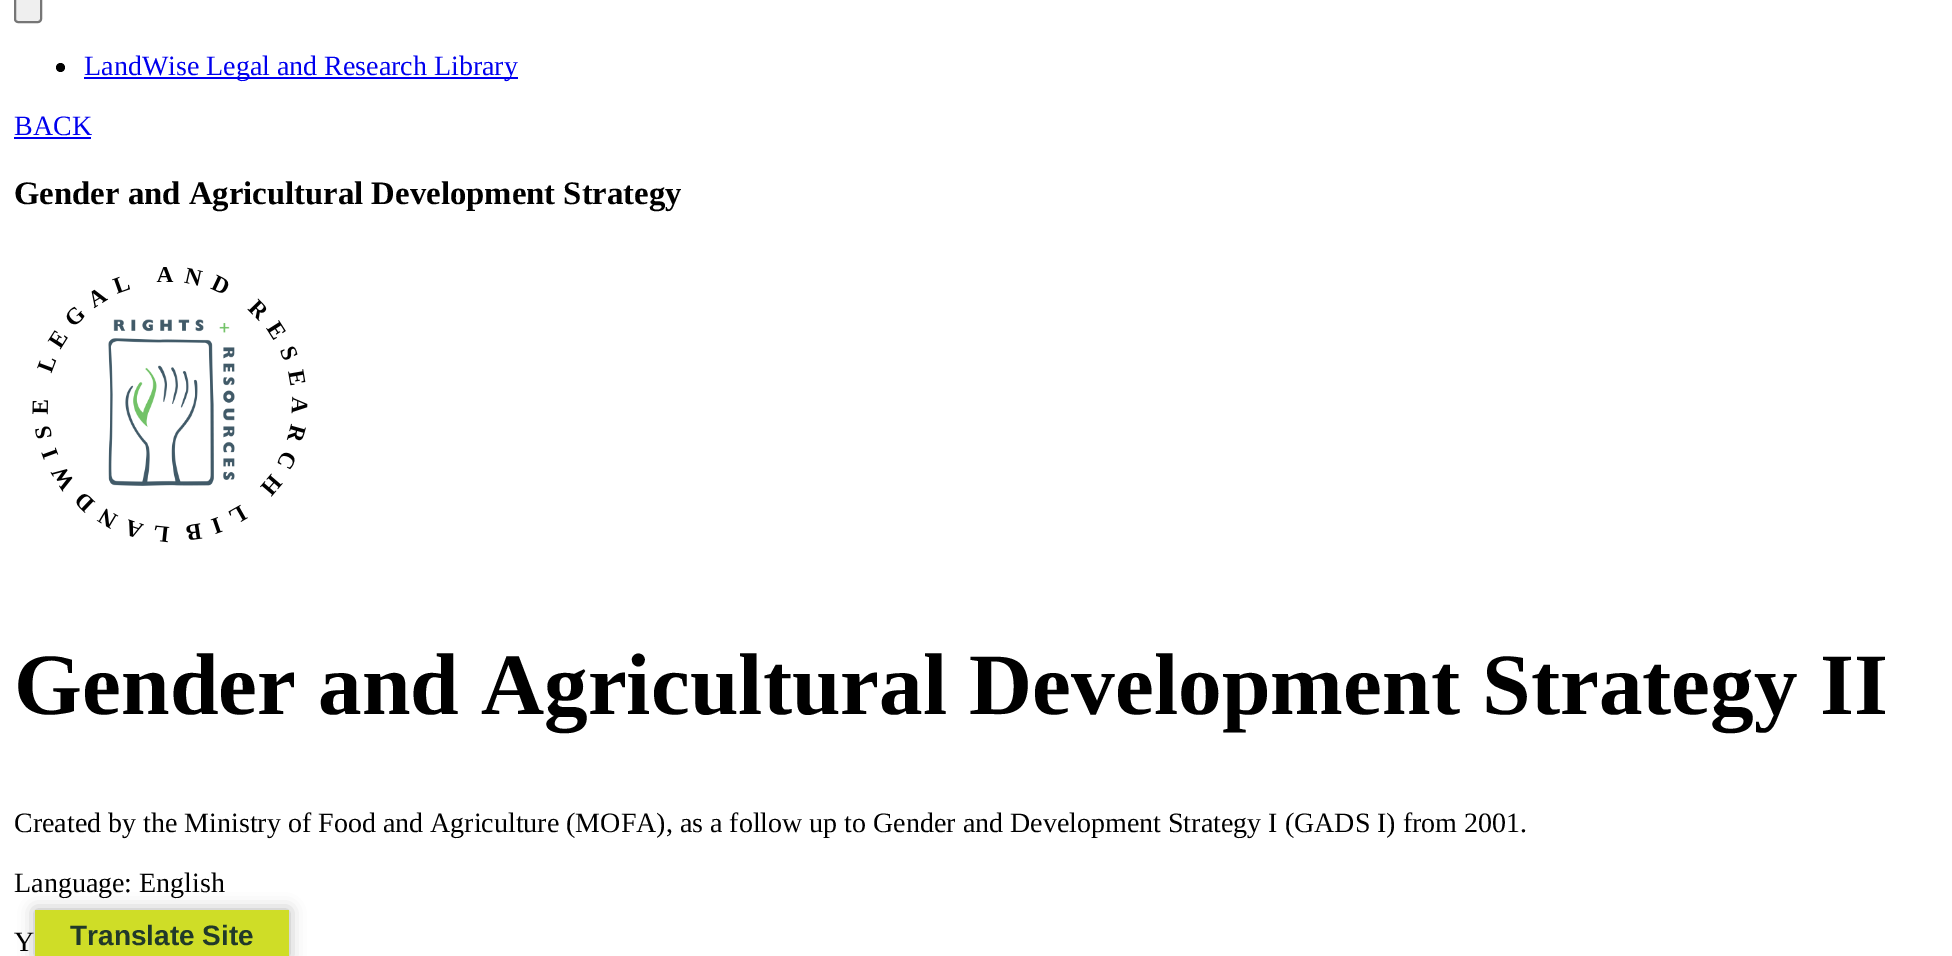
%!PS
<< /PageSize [1952 956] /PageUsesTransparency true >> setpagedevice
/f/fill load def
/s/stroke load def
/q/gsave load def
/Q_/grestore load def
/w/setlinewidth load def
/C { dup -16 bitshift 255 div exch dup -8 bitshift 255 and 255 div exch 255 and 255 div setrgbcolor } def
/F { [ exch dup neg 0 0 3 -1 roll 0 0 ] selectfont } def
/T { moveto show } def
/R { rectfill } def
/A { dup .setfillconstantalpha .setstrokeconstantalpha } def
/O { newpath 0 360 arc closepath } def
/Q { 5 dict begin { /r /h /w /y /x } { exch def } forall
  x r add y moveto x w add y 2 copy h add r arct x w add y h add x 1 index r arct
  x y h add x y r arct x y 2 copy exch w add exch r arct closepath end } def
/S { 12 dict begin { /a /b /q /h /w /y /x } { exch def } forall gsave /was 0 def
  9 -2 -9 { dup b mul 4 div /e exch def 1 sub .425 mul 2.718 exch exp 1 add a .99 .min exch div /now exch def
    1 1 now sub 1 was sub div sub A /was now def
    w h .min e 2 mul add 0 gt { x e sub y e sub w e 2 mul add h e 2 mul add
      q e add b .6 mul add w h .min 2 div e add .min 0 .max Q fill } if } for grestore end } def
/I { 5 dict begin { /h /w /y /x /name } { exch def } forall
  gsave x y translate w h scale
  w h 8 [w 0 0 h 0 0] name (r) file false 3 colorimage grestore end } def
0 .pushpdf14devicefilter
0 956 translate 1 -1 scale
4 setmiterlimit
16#FFFFFF C
0 0 1952 956 R
16#EFEFEF C
15 -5 26 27 3 Q q f Q_
16#767676 C
2 w
s
16#000000 C
60.5 67.5 4.5 O f
16#0000EE C
84 77 434 2 R
/LiberationSerif-Regular 28 F
(LandWise Legal and Research Library) 84 75 T
(BACK) 14 135 T
14 137 77 2 R
/LiberationSerif-Bold 32.75 F
16#000000 C
(Gender and Agricultural Development Strategy) 14 204 T
(1.rgb) 32 267 276 276 I
(2.rgb) 108 319 127 167 I
/LiberationSerif-Bold 87.5 F
(Gender and Agricultural Development Strategy II) 14 714 T
/LiberationSerif-Regular 28 F
(Created by the Ministry of Food and Agriculture \(MOFA\), as a follow up to Gender and Development Strategy I \(GADS I\) from 2001.) 14 832 T
(Language: English) 14 892 T
(Y) 14 951 T
35 910 254 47 0 8 .3 S
16#CFDD27 C
35 910 254 46 R
/LiberationSans-Bold 28 F
16#21392A C
(Translate Site) 70 945 T
.poppdf14devicefilter showpage
